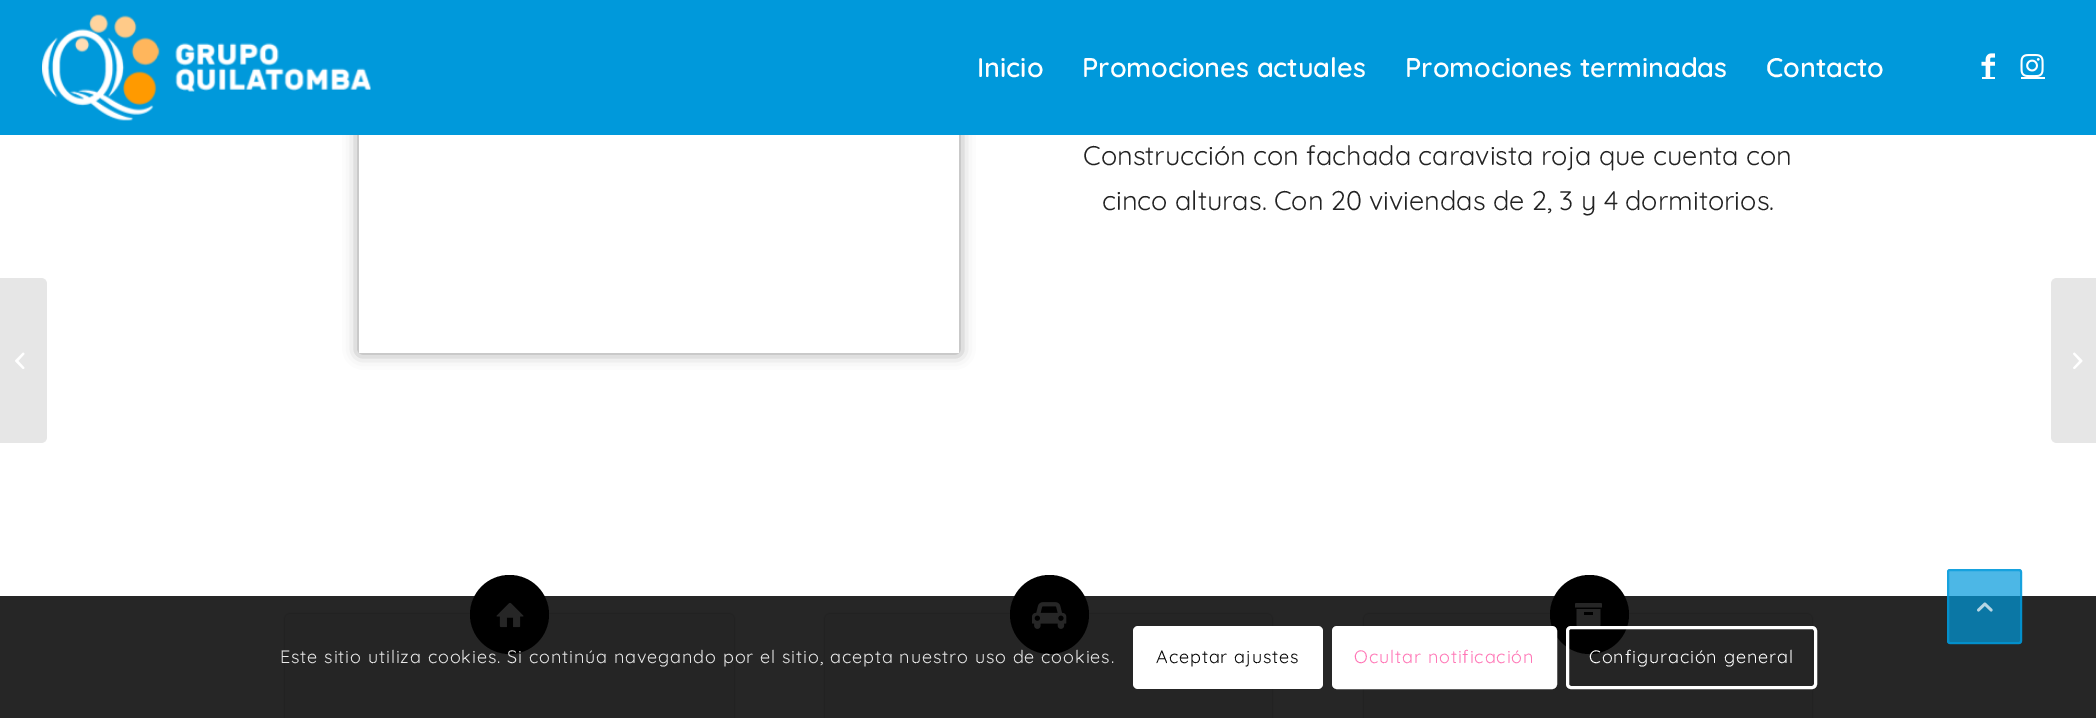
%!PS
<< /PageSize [2096 718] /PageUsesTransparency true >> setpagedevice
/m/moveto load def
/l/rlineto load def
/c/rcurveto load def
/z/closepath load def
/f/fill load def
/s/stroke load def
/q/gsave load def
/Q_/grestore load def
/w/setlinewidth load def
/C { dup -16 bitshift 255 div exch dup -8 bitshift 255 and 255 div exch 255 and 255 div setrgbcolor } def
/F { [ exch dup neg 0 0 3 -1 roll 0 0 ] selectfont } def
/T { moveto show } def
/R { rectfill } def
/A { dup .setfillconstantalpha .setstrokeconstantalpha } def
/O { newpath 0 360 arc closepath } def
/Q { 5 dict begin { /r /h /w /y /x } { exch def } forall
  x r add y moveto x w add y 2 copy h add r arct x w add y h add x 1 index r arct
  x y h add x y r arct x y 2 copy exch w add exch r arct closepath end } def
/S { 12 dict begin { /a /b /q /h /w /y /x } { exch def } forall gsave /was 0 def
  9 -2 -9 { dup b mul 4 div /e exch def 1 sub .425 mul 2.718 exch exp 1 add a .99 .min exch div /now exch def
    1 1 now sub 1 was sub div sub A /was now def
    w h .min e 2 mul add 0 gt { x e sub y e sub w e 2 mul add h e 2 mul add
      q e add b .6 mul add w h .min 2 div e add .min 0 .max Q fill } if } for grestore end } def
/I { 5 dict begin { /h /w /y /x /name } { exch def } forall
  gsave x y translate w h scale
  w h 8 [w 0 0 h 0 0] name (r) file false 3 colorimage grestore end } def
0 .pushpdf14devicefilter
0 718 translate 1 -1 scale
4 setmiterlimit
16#FFFFFF C
0 0 2096 718 R
q
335 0 m 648 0 l 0 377 l -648 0 l z 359 -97 m 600 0 l 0 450 l -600 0 l z eoclip newpath
16#000000 C
359 -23 600 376 0 7.5 .42 S
Q_
16#0099DB C
0 0 2096 135 R
(1.rgb) 42 14 329 107 I
/Quicksand-SemiBold 27 F
16#FFFFFF C
(Inicio) 977 77 T
(Promociones actuales) 1082 77 T
(Promociones terminadas) 1405 77 T
(Contacto) 1766 77 T
(2.rgb) 1981 53 14 24 I
1982 77 13 2 R
(3.rgb) 2020 54 24 23 I
2021 77 24 2 R
/Quicksand-Regular 27 F
16#222222 C
(Construcción con fachada caravista roja que cuenta con) 1083 165 T
(cinco alturas. Con 20 viviendas de 2, 3 y 4 dormitorios.) 1102 210 T
16#000000 C
285 614 449 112 5 1 .3 S
16#F8F8F8 C
285 614 449 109 5 Q f
16#000000 C
509.5 614.5 39.5 O f
(4.rgb) 496 602 28 26 I
825 614 447 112 5 1 .3 S
16#F8F8F8 C
825 614 447 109 5 Q f
16#000000 C
1049.5 614.5 39.5 O f
(5.rgb) 1032 602 35 27 I
1364 614 448 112 5 1 .3 S
16#F8F8F8 C
1364 614 448 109 5 Q f
16#000000 C
1589.5 614.5 39.5 O f
(6.rgb) 1575 603 27 23 I
16#E6E6E6 C
0 278 m 41 0 l 3.5 0 6 2.5 6 6 c 0 153 l 0 3.5 -2.5 6 -6 6 c -41 0 l z f
(7.rgb) 15 352 10 17 I
2057 278 m 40 0 l 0 165 l -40 0 l -3.5 0 -6 -2.5 -6 -6 c 0 -153 l 0 -3.5 2.5 -6 6 -6 c z f
(8.rgb) 2073 352 10 17 I
0.85 A
16#000000 C
0 596 2096 122 R
0.7 A
16#0099DB C
1947 569 75 75 3 Q f
2 w
1948 570 73 73 2 Q s
1 A
(9.rgb) 1977 602 16 10 I
/Quicksand-Regular 18 F
16#E9E9E9 C
280 663 m .9 0 (Este sitio utiliza cookies. Si continúa navegando por el sitio, acepta nuestro uso de cookies.) ashow
16#FFFFFF C
1133 626 190 63 5 Q f
16#000000 C
1156 663 m .9 0 (Aceptar ajustes) ashow
16#FFFFFF C
1333.5 627.5 222 60 3.5 Q q f Q_
3 w
s
16#FF75B5 C
1354 663 m .9 0 (Ocultar notificación) ashow
16#FFFFFF C
1567.5 627.5 248 60 3.5 Q s
1589 663 m .9 0 (Configuración general) ashow
.poppdf14devicefilter showpage
